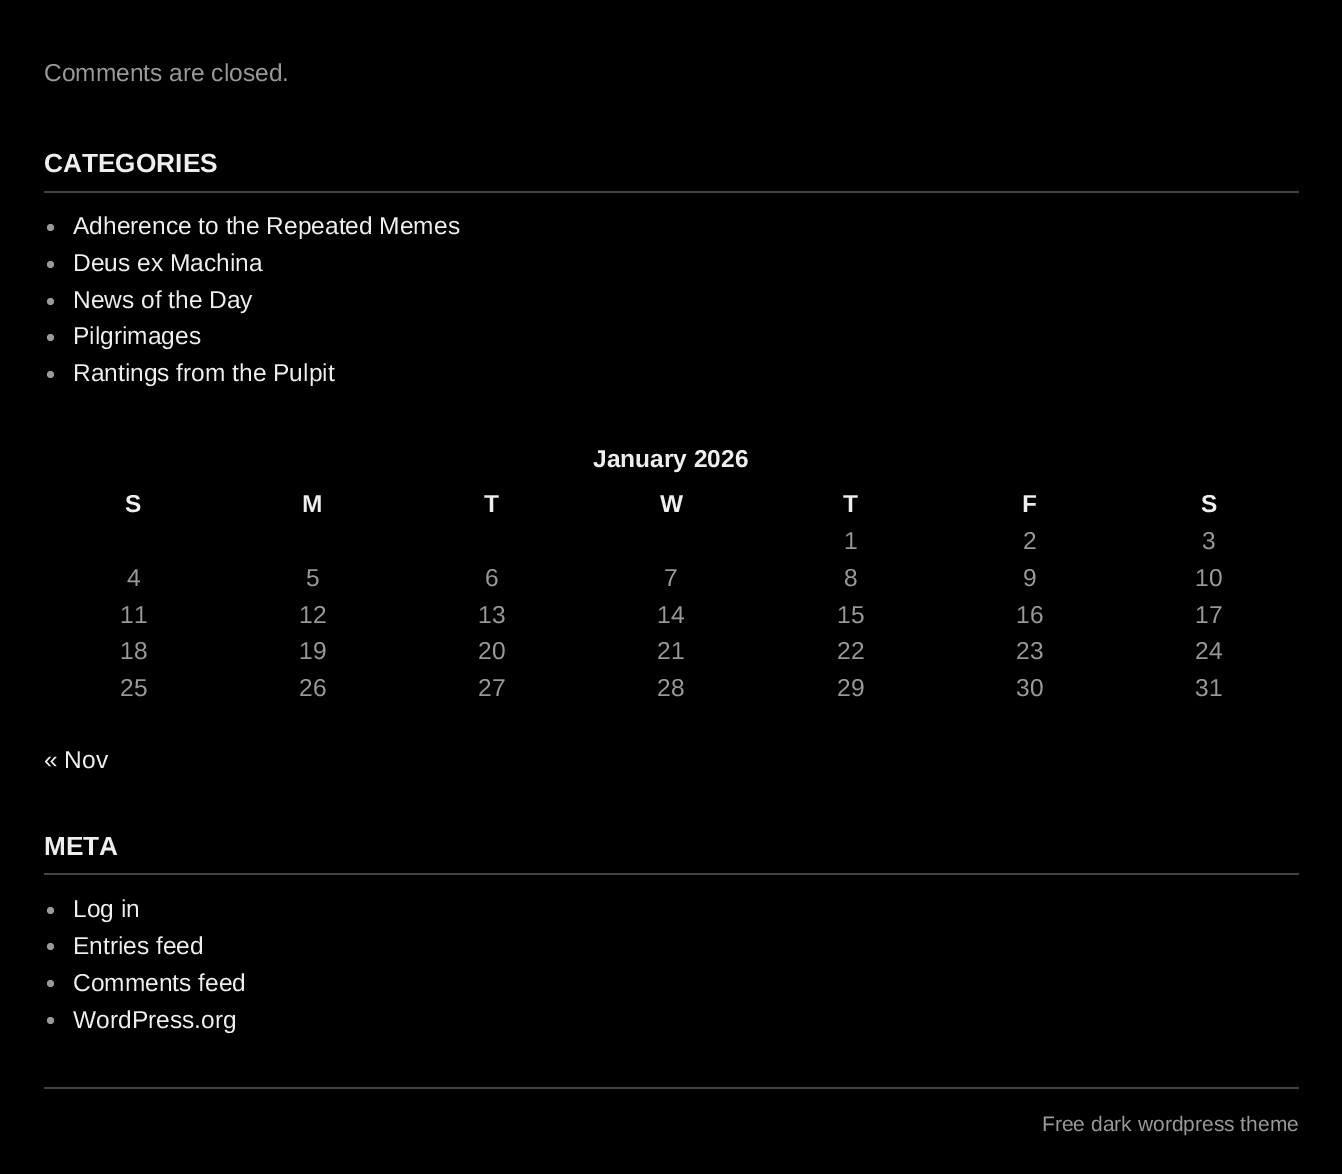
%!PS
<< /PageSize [1342 1174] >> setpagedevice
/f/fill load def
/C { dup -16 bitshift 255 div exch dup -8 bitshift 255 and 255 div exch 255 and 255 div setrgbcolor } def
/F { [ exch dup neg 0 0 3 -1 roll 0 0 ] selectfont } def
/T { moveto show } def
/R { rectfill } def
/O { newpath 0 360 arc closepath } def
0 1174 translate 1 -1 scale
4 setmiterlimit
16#000000 C
0 0 1342 1174 R
/LiberationSans-Regular 24.5 F
16#999999 C
(Comments are closed.) 44 81 T
16#444444 C
44 191 1255 2 R
/LiberationSans-Bold 26.25 F
16#EEEEEE C
(CATEGORIES) 44 172 T
16#999999 C
50.5 227.5 3.5 O f
/LiberationSans-Regular 24.5 F
16#EEEEEE C
(Adherence to the Repeated Memes) 73 234 T
16#999999 C
50.5 264.5 3.5 O f
16#EEEEEE C
(Deus ex Machina) 73 271 T
16#999999 C
50.5 301.5 3.5 O f
16#EEEEEE C
(News of the Day) 73 308 T
16#999999 C
50.5 337.5 3.5 O f
16#EEEEEE C
(Pilgrimages) 73 344 T
16#999999 C
50.5 374.5 3.5 O f
16#EEEEEE C
(Rantings from the Pulpit) 73 381 T
/LiberationSans-Bold 24.5 F
(January 2026) 593 467 T
(S) 125 512 T
(M) 302 512 T
(T) 484 512 T
(W) 660 512 T
(T) 843 512 T
(F) 1022 512 T
(S) 1201 512 T
/LiberationSans-Regular 24.5 F
16#999999 C
(1) 844 549 T
(2) 1023 549 T
(3) 1202 549 T
(4) 127 586 T
(5) 306 586 T
(6) 485 586 T
(7) 664 586 T
(8) 844 586 T
(9) 1023 586 T
(10) 1195 586 T
(11) 120 623 T
(12) 299 623 T
(13) 478 623 T
(14) 657 623 T
(15) 837 623 T
(16) 1016 623 T
(17) 1195 623 T
(18) 120 659 T
(19) 299 659 T
(20) 478 659 T
(21) 657 659 T
(22) 837 659 T
(23) 1016 659 T
(24) 1195 659 T
(25) 120 696 T
(26) 299 696 T
(27) 478 696 T
(28) 657 696 T
(29) 837 696 T
(30) 1016 696 T
(31) 1195 696 T
16#EEEEEE C
(« Nov) 44 768 T
16#444444 C
44 873 1255 2 R
/LiberationSans-Bold 26.25 F
16#EEEEEE C
(META) 44 855 T
16#999999 C
50.5 910.5 3.5 O f
/LiberationSans-Regular 24.5 F
16#EEEEEE C
(Log in) 73 917 T
16#999999 C
50.5 946.5 3.5 O f
16#EEEEEE C
(Entries feed) 73 954 T
16#999999 C
50.5 983.5 3.5 O f
16#EEEEEE C
(Comments feed) 73 991 T
16#999999 C
50.5 1020.5 3.5 O f
16#EEEEEE C
(WordPress.org) 73 1028 T
16#444444 C
44 1087 1255 2 R
/LiberationSans-Regular 21 F
16#999999 C
(Free dark wordpress theme) 1042 1131 T
showpage
